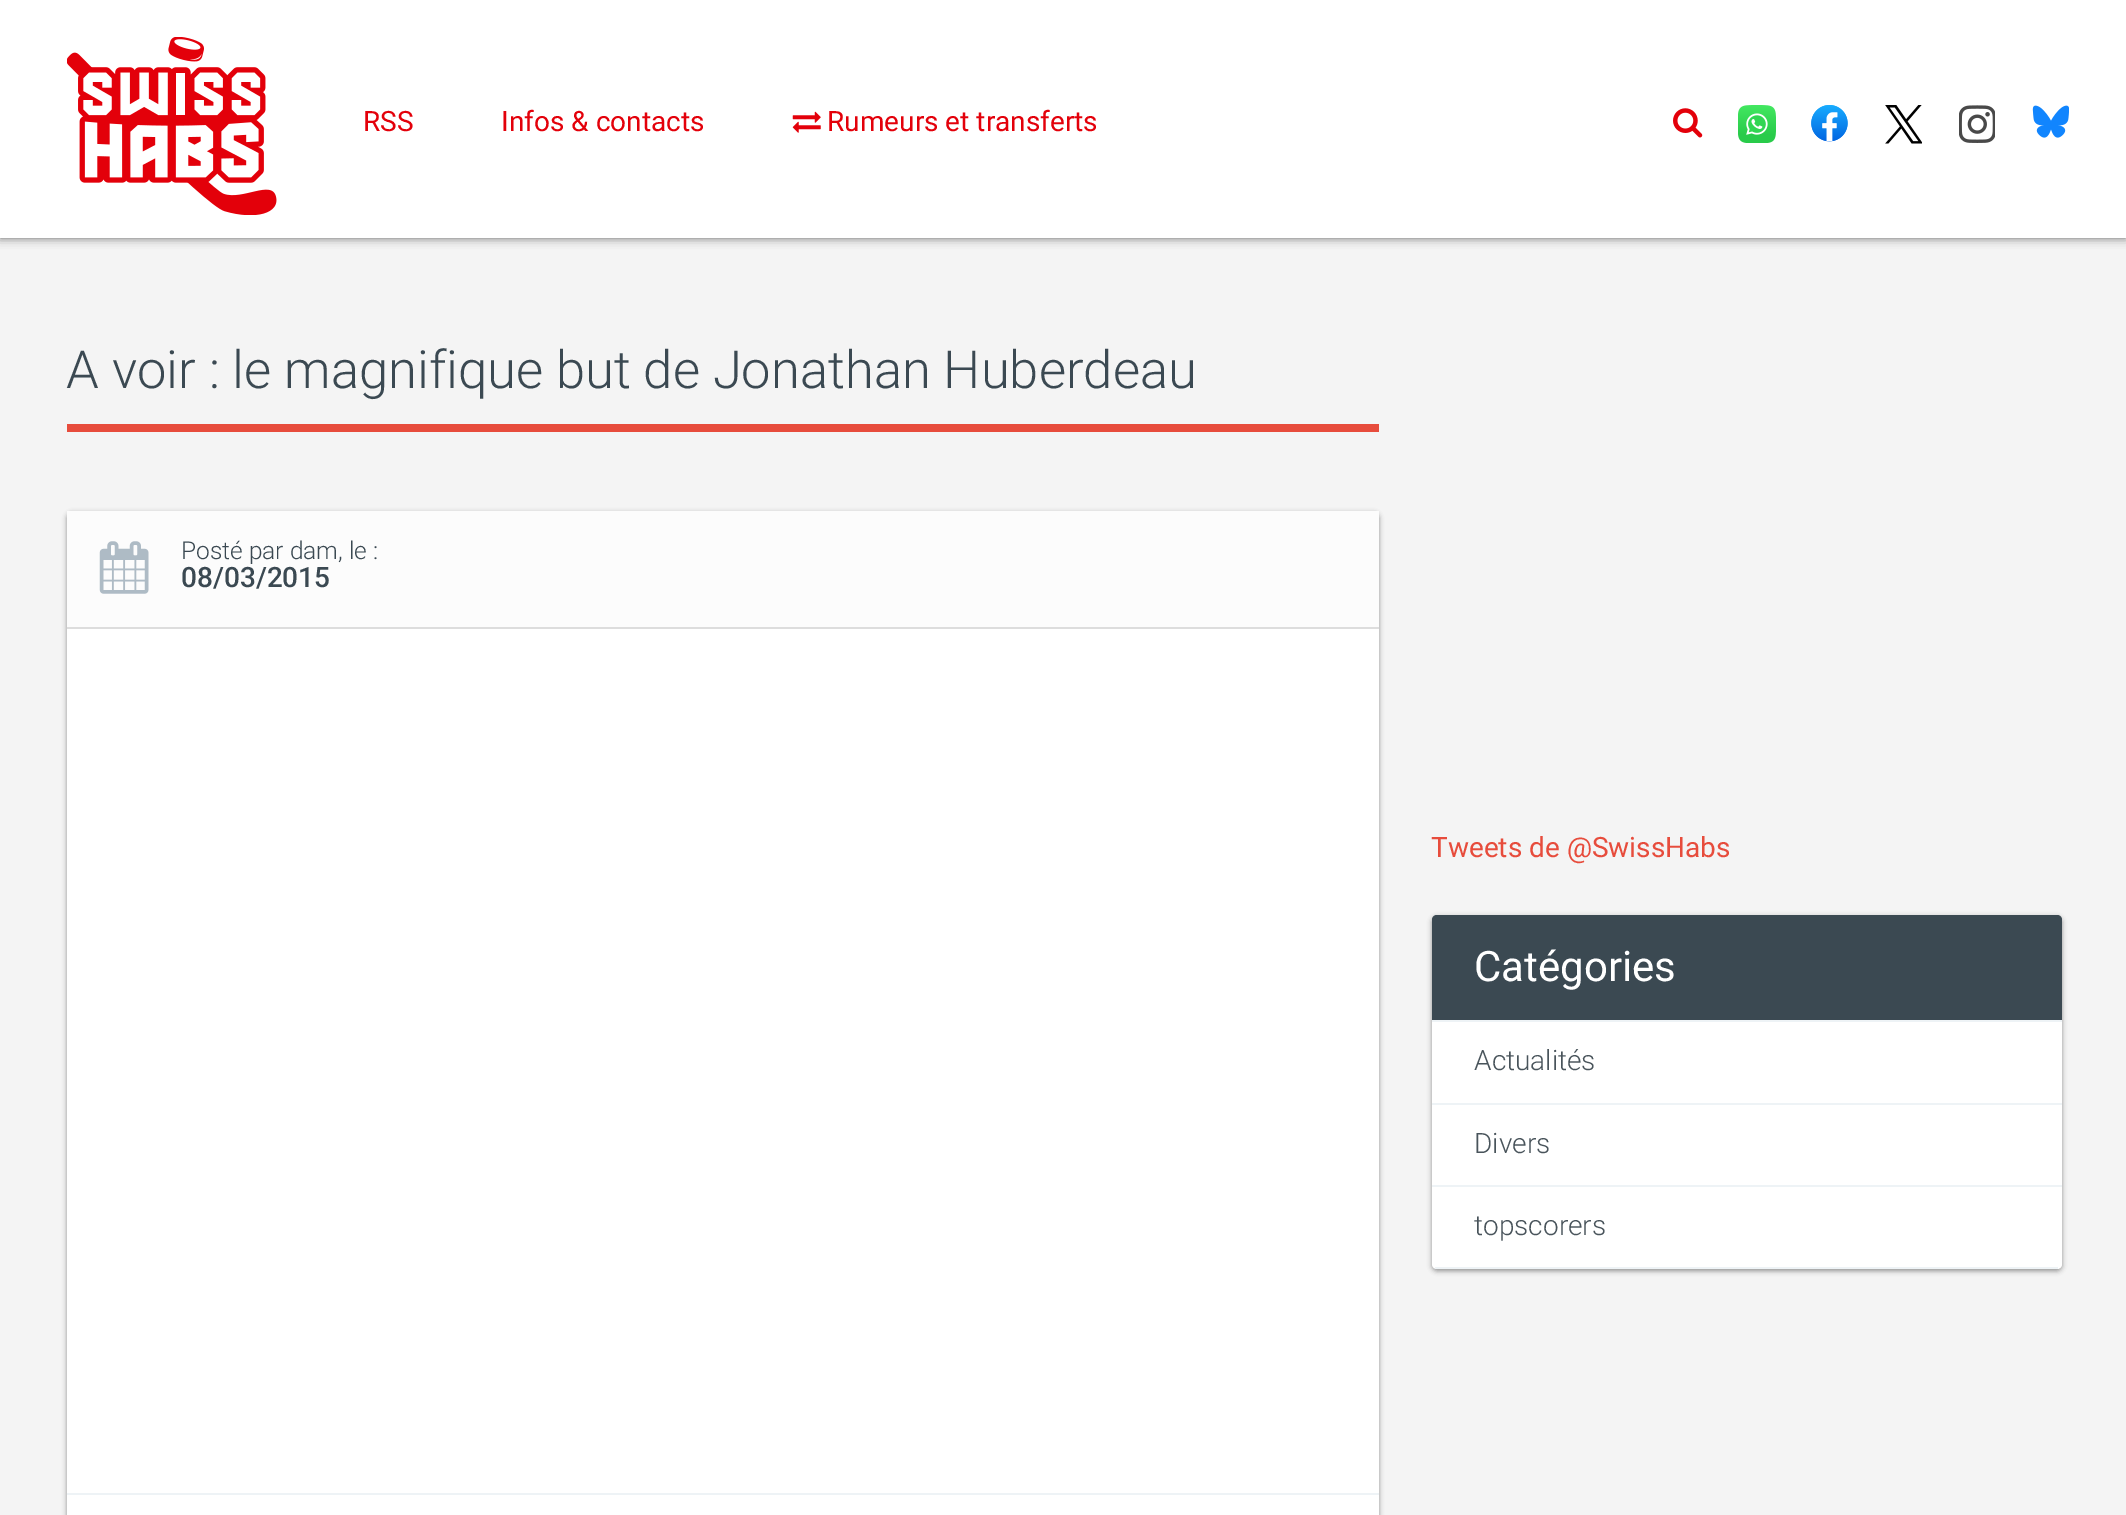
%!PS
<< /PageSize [2126 1515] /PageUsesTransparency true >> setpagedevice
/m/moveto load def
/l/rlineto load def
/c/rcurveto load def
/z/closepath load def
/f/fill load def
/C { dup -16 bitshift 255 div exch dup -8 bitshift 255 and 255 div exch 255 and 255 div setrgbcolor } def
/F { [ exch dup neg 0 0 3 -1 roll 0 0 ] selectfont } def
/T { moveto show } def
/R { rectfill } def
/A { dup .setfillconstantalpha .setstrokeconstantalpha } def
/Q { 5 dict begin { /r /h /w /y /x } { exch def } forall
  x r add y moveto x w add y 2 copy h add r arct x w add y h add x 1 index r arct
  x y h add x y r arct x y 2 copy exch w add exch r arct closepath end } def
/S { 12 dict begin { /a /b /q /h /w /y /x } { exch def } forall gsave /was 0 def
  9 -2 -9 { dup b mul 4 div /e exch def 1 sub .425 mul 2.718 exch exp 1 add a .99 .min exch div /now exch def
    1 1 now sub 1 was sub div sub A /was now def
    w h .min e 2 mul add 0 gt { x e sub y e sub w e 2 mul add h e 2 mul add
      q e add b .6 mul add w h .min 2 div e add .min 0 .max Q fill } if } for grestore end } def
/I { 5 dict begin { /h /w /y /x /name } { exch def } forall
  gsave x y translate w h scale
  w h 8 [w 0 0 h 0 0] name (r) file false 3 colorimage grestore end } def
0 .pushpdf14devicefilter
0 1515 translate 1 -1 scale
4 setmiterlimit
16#F4F4F4 C
0 0 2126 1515 R
16#666666 C
0 0 2126 238 0 5 1 S
16#FFFFFF C
0 0 2126 238 R
(1.rgb) 67 37 210 178 I
/Roboto-Regular 28 F
16#E3000A C
(RSS) 363 131 T
(Infos & contacts) 501 131 T
(2.rgb) 792 111 29 22 I
(Rumeurs et transferts) 827 131 T
(3.rgb) 1673 108 30 30 I
(4.rgb) 1738 105 38 38 I
(5.rgb) 1811 105 37 37 I
(6.rgb) 1885 105 37 39 I
(7.rgb) 1959 105 36 38 I
(8.rgb) 2032 105 37 33 I
16#E74C3C C
67 424 1312 8 R
/Roboto-Light 52.5 F
16#3B4952 C
(A voir : le magnifique but de Jonathan Huberdeau) 66 388 T
16#000000 C
67 513 1312 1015 5 2.5 .4 S
16#FFFFFF C
67 629 1312 886 R
16#FCFCFC C
67 511 1312 116 R
16#DDDDDD C
67 627 1312 2 R
(9.rgb) 99 541 50 53 I
/Roboto-Light 24.5 F
16#3B4952 C
(Posté par dam, le :) 181 559 T
/Roboto-Medium 28 F
(08/03/2015) 181 587 T
16#EEF3F6 C
67 1493 1312 2 R
/Roboto-Regular 28 F
16#E74C3C C
(Tweets de @SwissHabs) 1431 857 T
16#000000 C
1432 917 630 354 5 2.5 .4 S
16#3B4952 C
1437 915 m 620 0 l 3 0 5 2 5 5 c 0 100 l -630 0 l 0 -100 l 0 -3 2 -5 5 -5 c z f
/Roboto-Regular 42 F
16#FFFFFF C
(Catégories) 1474 981 T
1432 1020 m 630 0 l 0 244 l 0 3 -2 5 -5 5 c -620 0 l -3 0 -5 -2 -5 -5 c z f
16#EEF3F6 C
1432 1020 630 2 R
/Roboto-Light 28 F
16#49545B C
(Actualités) 1474 1070 T
16#EEF3F6 C
1432 1103 630 2 R
16#49545B C
(Divers) 1474 1153 T
16#EEF3F6 C
1432 1185 630 2 R
1435 1267 623 2 R
16#49545B C
(topscorers) 1474 1235 T
.poppdf14devicefilter showpage
